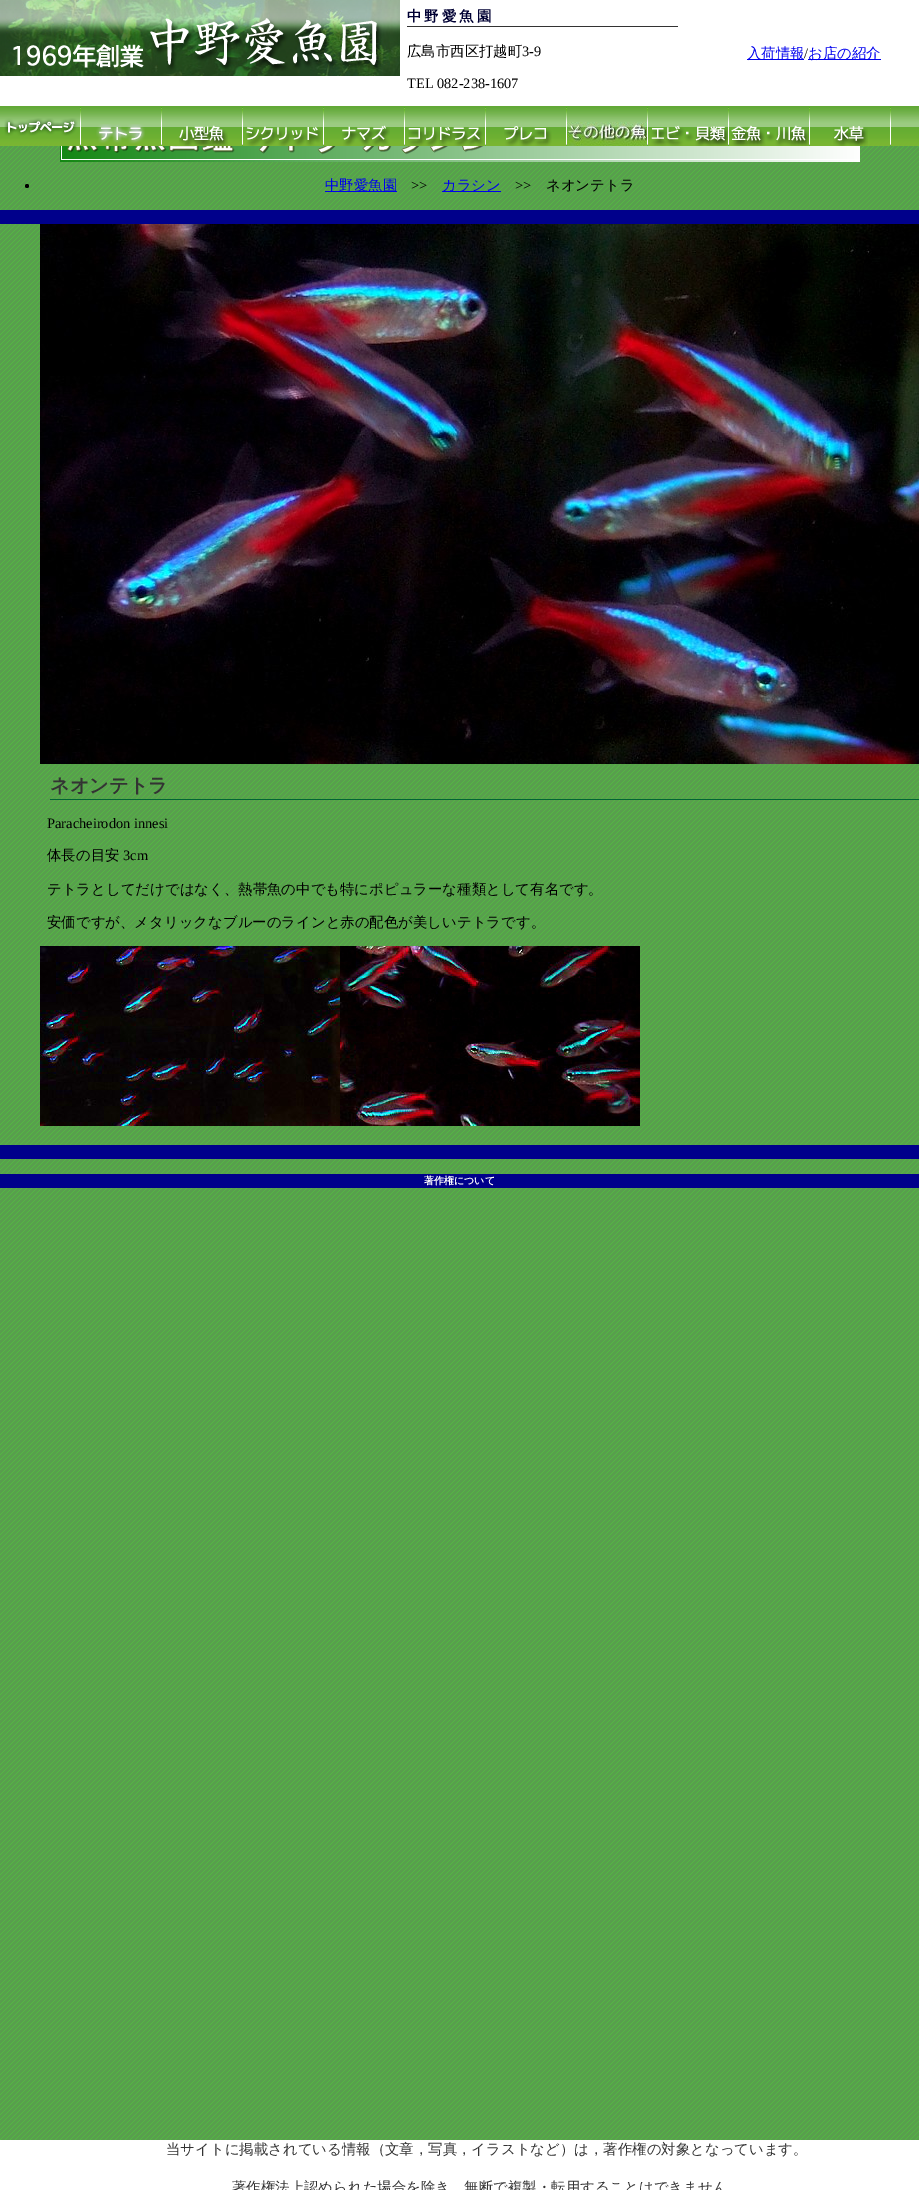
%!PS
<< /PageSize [919 2190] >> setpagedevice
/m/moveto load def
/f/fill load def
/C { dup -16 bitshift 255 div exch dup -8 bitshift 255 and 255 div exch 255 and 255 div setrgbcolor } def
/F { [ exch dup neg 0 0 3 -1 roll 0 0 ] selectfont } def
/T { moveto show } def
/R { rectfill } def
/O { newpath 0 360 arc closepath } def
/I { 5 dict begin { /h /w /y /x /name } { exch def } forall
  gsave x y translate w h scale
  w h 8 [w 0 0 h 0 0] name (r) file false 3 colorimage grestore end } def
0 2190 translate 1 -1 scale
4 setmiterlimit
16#FFFFFF C
0 0 919 2190 R
(1.rgb) 0 146 919 1994 I
(2.rgb) 0 0 400 76 I
16#333333 C
407 26 271 1 R
/WenQuanYiZenHei-Bold 14.4 F
16#000033 C
407 21 m 3 0 (中野愛魚園) ashow
/WenQuanYiZenHei-Medium 14.4 F
16#000000 C
(広島市西区打越町) 407 56 T
/LiberationSerif-Regular 14.4 F
(3-9) 522 56 T
(TEL 082-238-1607) 407 88 T
16#0000EE C
747 59 57 1 R
/WenQuanYiZenHei-Medium 14.4 F
(入荷情報) 747 58 T
/LiberationSerif-Regular 14.4 F
16#000000 C
(/) 804 58 T
16#0000EE C
808 59 73 1 R
/WenQuanYiZenHei-Medium 14.4 F
(お店の紹介) 808 58 T
(3.rgb) 0 106 919 40 I
(4.rgb) 4 118 74 18 I
(5.rgb) 80 106 1 40 I
(6.rgb) 96 124 49 20 I
(5.rgb) 161 106 1 40 I
(7.rgb) 179 125 49 21 I
(5.rgb) 242 106 1 40 I
(8.rgb) 246 126 76 20 I
(5.rgb) 323 106 1 40 I
(9.rgb) 342 125 48 21 I
(5.rgb) 404 106 1 40 I
(10.rgb) 408 127 76 19 I
(5.rgb) 485 106 1 40 I
(11.rgb) 504 126 48 20 I
(5.rgb) 566 106 1 40 I
(12.rgb) 567 122 80 24 I
(5.rgb) 647 106 1 40 I
(13.rgb) 651 125 77 21 I
(5.rgb) 728 106 1 40 I
(14.rgb) 731 125 78 21 I
(5.rgb) 809 106 1 40 I
(15.rgb) 833 126 35 20 I
(5.rgb) 890 106 1 40 I
(16.rgb) 60 146 800 16 I
16#000000 C
27 186 2 O f
16#0000EE C
325 191 72 1 R
(中野愛魚園) 325 190 T
/LiberationSerif-Regular 14.4 F
16#000000 C
(>>) 411 190 T
16#0000EE C
442 191 59 1 R
/WenQuanYiZenHei-Medium 14.4 F
(カラシン) 442 190 T
/LiberationSerif-Regular 14.4 F
16#000000 C
(>>) 515 190 T
/WenQuanYiZenHei-Medium 14.4 F
(ネオンテトラ) 546 190 T
16#00008B C
0 210 919 14 R
(17.rgb) 40 224 879 540 I
16#006633 C
50 799 869 1 R
/WenQuanYiZenHei-Bold 19.25 F
16#333333 C
(ネオンテトラ) 50 792 T
/LiberationSerif-Regular 14.4 F
16#000000 C
(Paracheirodon innesi) 47 828 T
/WenQuanYiZenHei-Medium 14.4 F
(体長の目安) 47 860 T
/LiberationSerif-Regular 14.4 F
(3cm) 123 860 T
/WenQuanYiZenHei-Medium 14.4 F
(テトラとしてだけではなく、熱帯魚の中でも特にポピュラーな種類として有名です。) 47 894 T
(安価ですが、メタリックなブルーのラインと赤の配色が美しいテトラです。) 47 927 T
(18.rgb) 40 946 300 180 I
(19.rgb) 340 946 300 180 I
16#00008B C
0 1145 919 14 R
0 1174 919 14 R
/WenQuanYiZenHei-Bold 10 F
16#FFFFFF C
(著作権について) 424 1184 T
/WenQuanYiZenHei-Medium 14.4 F
16#333333 C
(当サイトに掲載されている情報（文章，写真，イラストなど）は，著作権の対象となっています。) 166 2154 T
(著作権法上認められた場合を除き，無断で複製・転用することはできません) 232 2192 T
showpage
